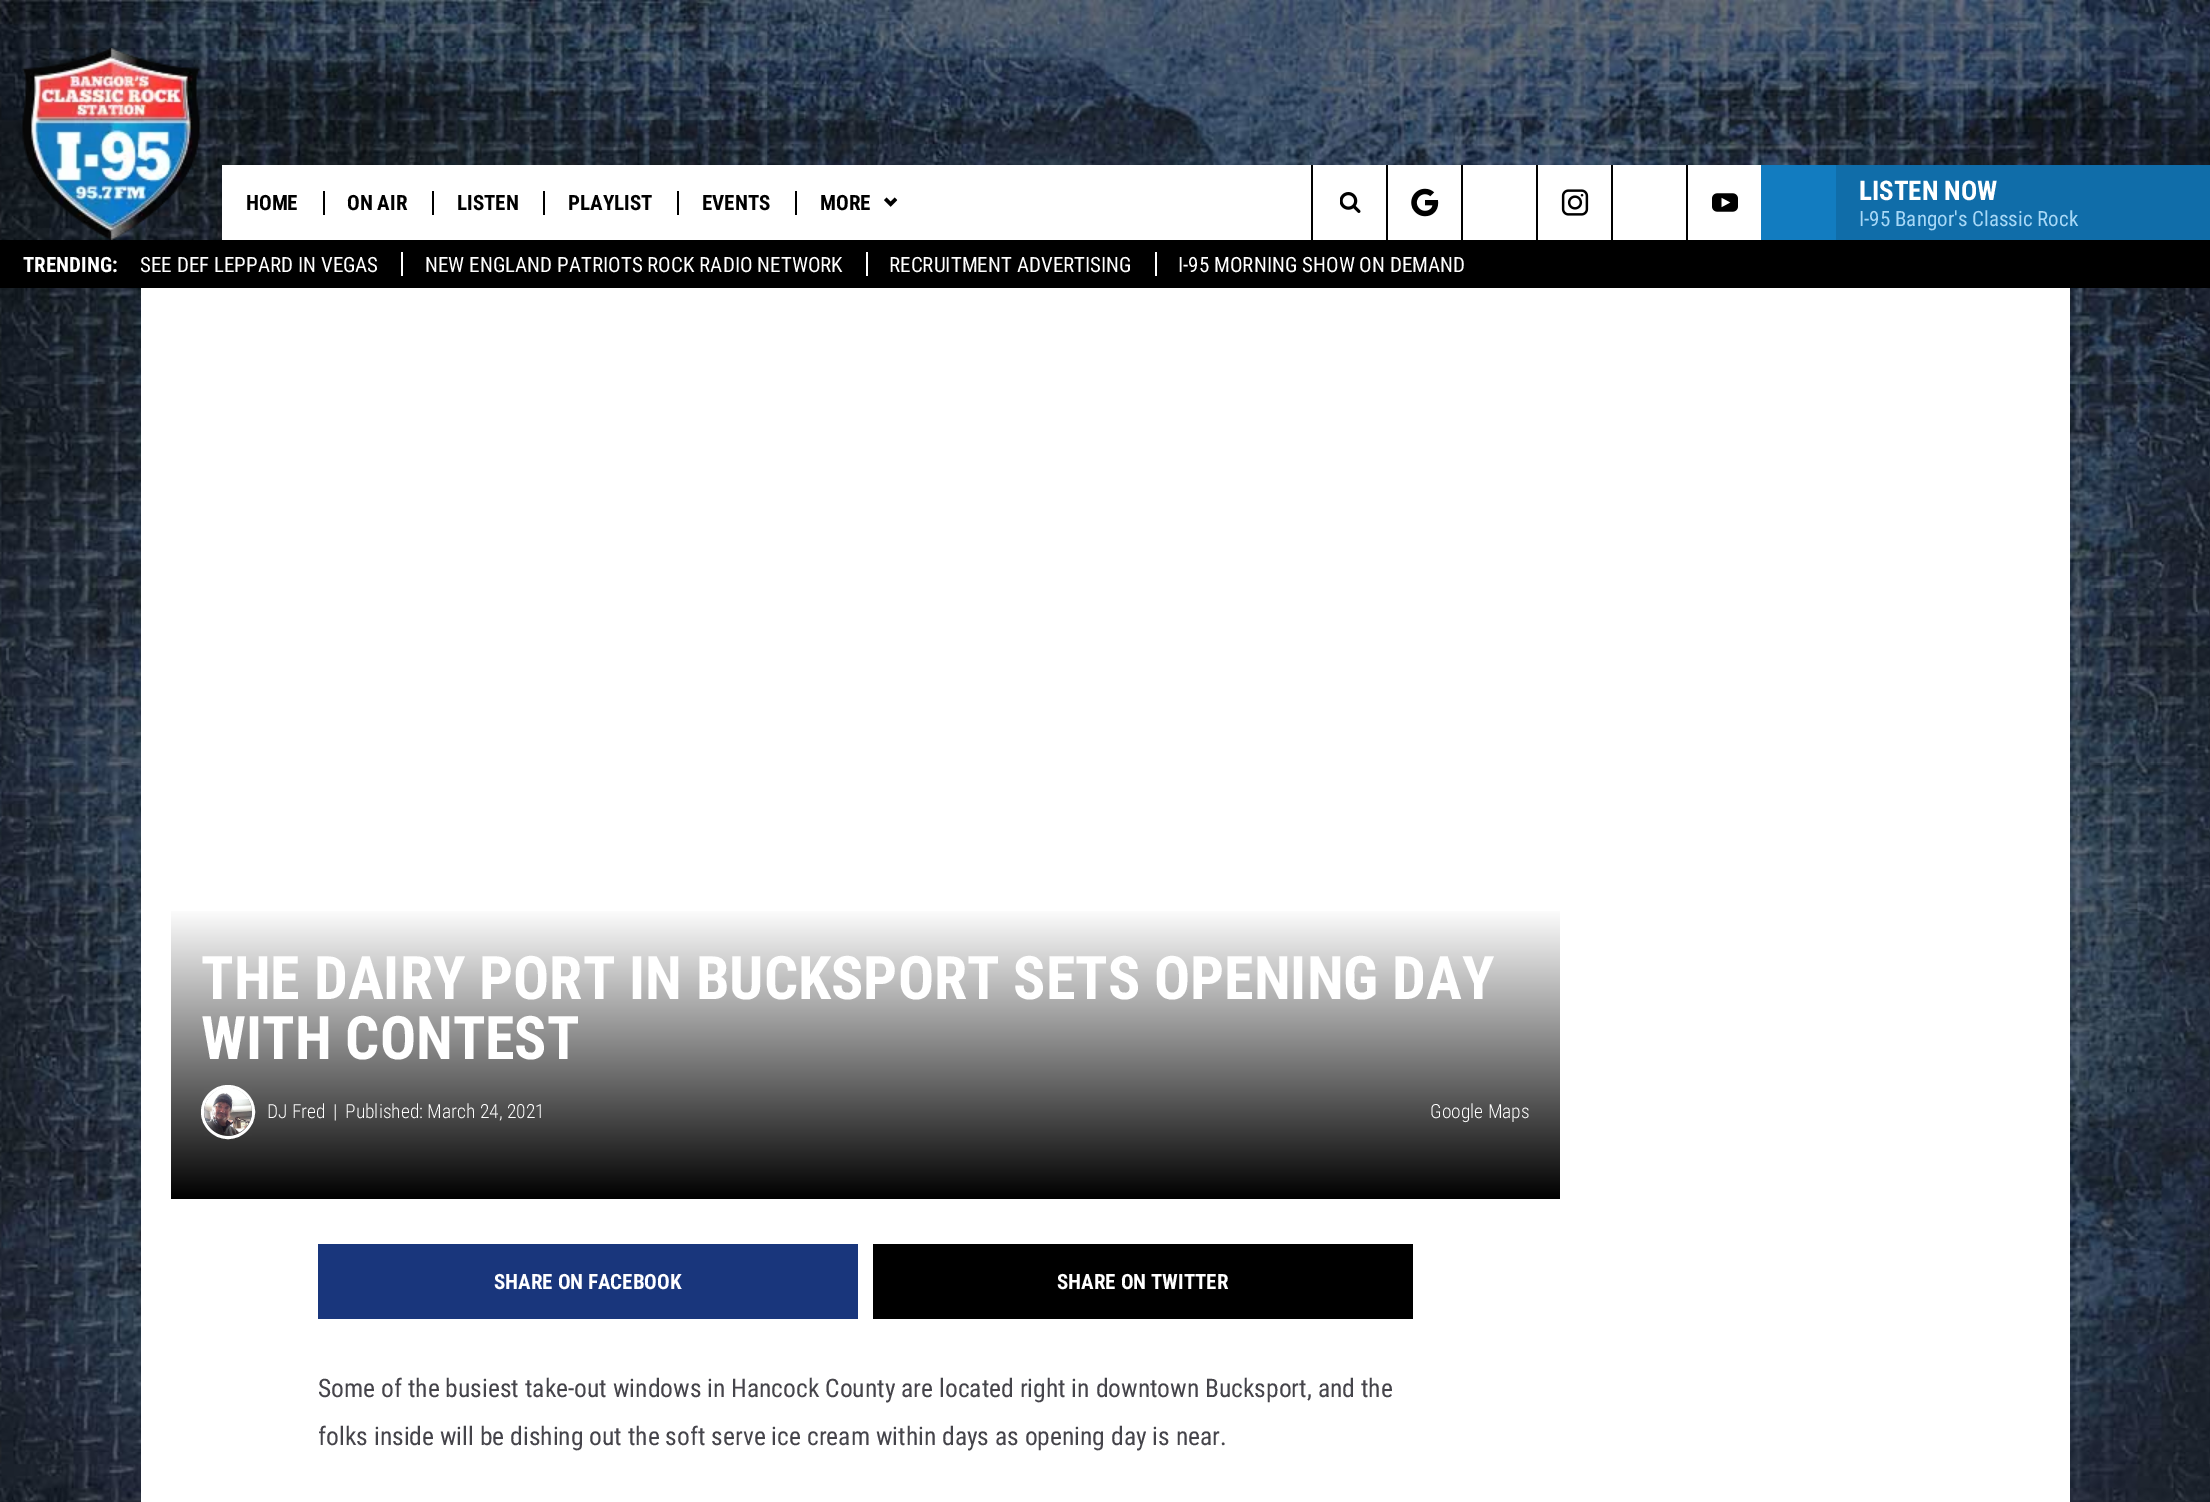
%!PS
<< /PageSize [2210 1502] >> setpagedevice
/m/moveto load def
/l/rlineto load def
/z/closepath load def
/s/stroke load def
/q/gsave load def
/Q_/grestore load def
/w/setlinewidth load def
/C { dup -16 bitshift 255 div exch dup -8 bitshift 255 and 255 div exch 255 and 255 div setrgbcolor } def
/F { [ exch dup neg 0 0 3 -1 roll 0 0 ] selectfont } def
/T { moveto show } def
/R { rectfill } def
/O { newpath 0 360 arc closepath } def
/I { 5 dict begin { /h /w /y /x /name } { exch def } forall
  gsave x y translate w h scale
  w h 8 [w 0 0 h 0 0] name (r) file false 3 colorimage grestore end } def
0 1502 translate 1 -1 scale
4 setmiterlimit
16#FFFFFF C
0 0 2210 1502 R
(1.rgb) 0 288 2210 1214 I
(2.rgb) 0 0 2210 240 I
(3.rgb) 22 48 178 192 I
222 165 1539 75 R
/RobotoCondensed-Bold 21 F
16#000000 C
(HOME) 246 210 T
323 191 2 24 R
(ON AIR) 347 210 T
432 191 2 24 R
(LISTEN) 457 210 T
543 191 2 24 R
(PLAYLIST) 568 210 T
677 191 2 24 R
(EVENTS) 702 210 T
795 191 2 24 R
(MORE) 820 210 T
(4.rgb) 884 197 14 10 I
1311 165 2 75 R
(5.rgb) 1340 192 21 21 I
1386 165 2 75 R
(6.rgb) 1411 188 28 29 I
1461 165 2 75 R
1536 165 2 75 R
(7.rgb) 1561 189 28 27 I
1611 165 2 75 R
1686 165 2 75 R
(8.rgb) 1712 193 26 19 I
16#127CC0 C
1761 165 75 75 R
16#106DA9 C
1836 165 374 75 R
/RobotoCondensed-Bold 27 F
16#FFFFFF C
(LISTEN NOW) 1859 200 T
/RobotoCondensed-Regular 21 F
16#A7D8F7 C
(I-95 Bangor's Classic Rock) 1859 226 T
16#000000 C
0 240 2210 48 R
/RobotoCondensed-Bold 21 F
16#FFFFFF C
(TRENDING:) 23 272 T
/RobotoCondensed-Regular 21 F
(SEE DEF LEPPARD IN VEGAS) 140 272 T
(NEW ENGLAND PATRIOTS ROCK RADIO NETWORK) 425 272 T
401 252 2 24 R
(RECRUITMENT ADVERTISING) 889 272 T
866 252 2 24 R
(I-95 MORNING SHOW ON DEMAND) 1178 272 T
1155 252 2 24 R
141 288 1929 1214 R
q 171 911 m 1389 0 l 0 288 l -1389 0 l z clip newpath
<< /ShadingType 2 /ColorSpace /DeviceRGB /Coords [866 908 866 1199] /Extend [true true] /Function << /FunctionType 2 /Domain [0 1] /C0 [1 1 1] /C1 [0 0 0] /N 1 >> >> shfill Q_
/RobotoCondensed-Bold 60 F
(THE DAIRY PORT IN BUCKSPORT SETS OPENING DAY) 201 999 T
(WITH CONTEST) 201 1059 T
3 w
228 1112 25.5 O s
(9.rgb) 204 1088 48 48 I
/RobotoCondensed-Light 19.5 F
(DJ Fred) 267 1118 T
(|) 333 1118 T
(Published: March 24, 2021) 345 1118 T
(Google Maps) 1430 1118 T
16#19367C C
318 1244 540 75 R
/RobotoCondensed-Bold 21 F
16#FFFFFF C
(SHARE ON FACEBOOK) 494 1289 T
16#000000 C
873 1244 540 75 R
16#FFFFFF C
(SHARE ON TWITTER) 1057 1289 T
/RobotoCondensed-Regular 25.5 F
16#45444A C
(Some of the busiest take-out windows in Hancock County are located right in downtown Bucksport, and the) 318 1397 T
(folks inside will be dishing out the soft serve ice cream within days as opening day is near.) 318 1445 T
showpage
